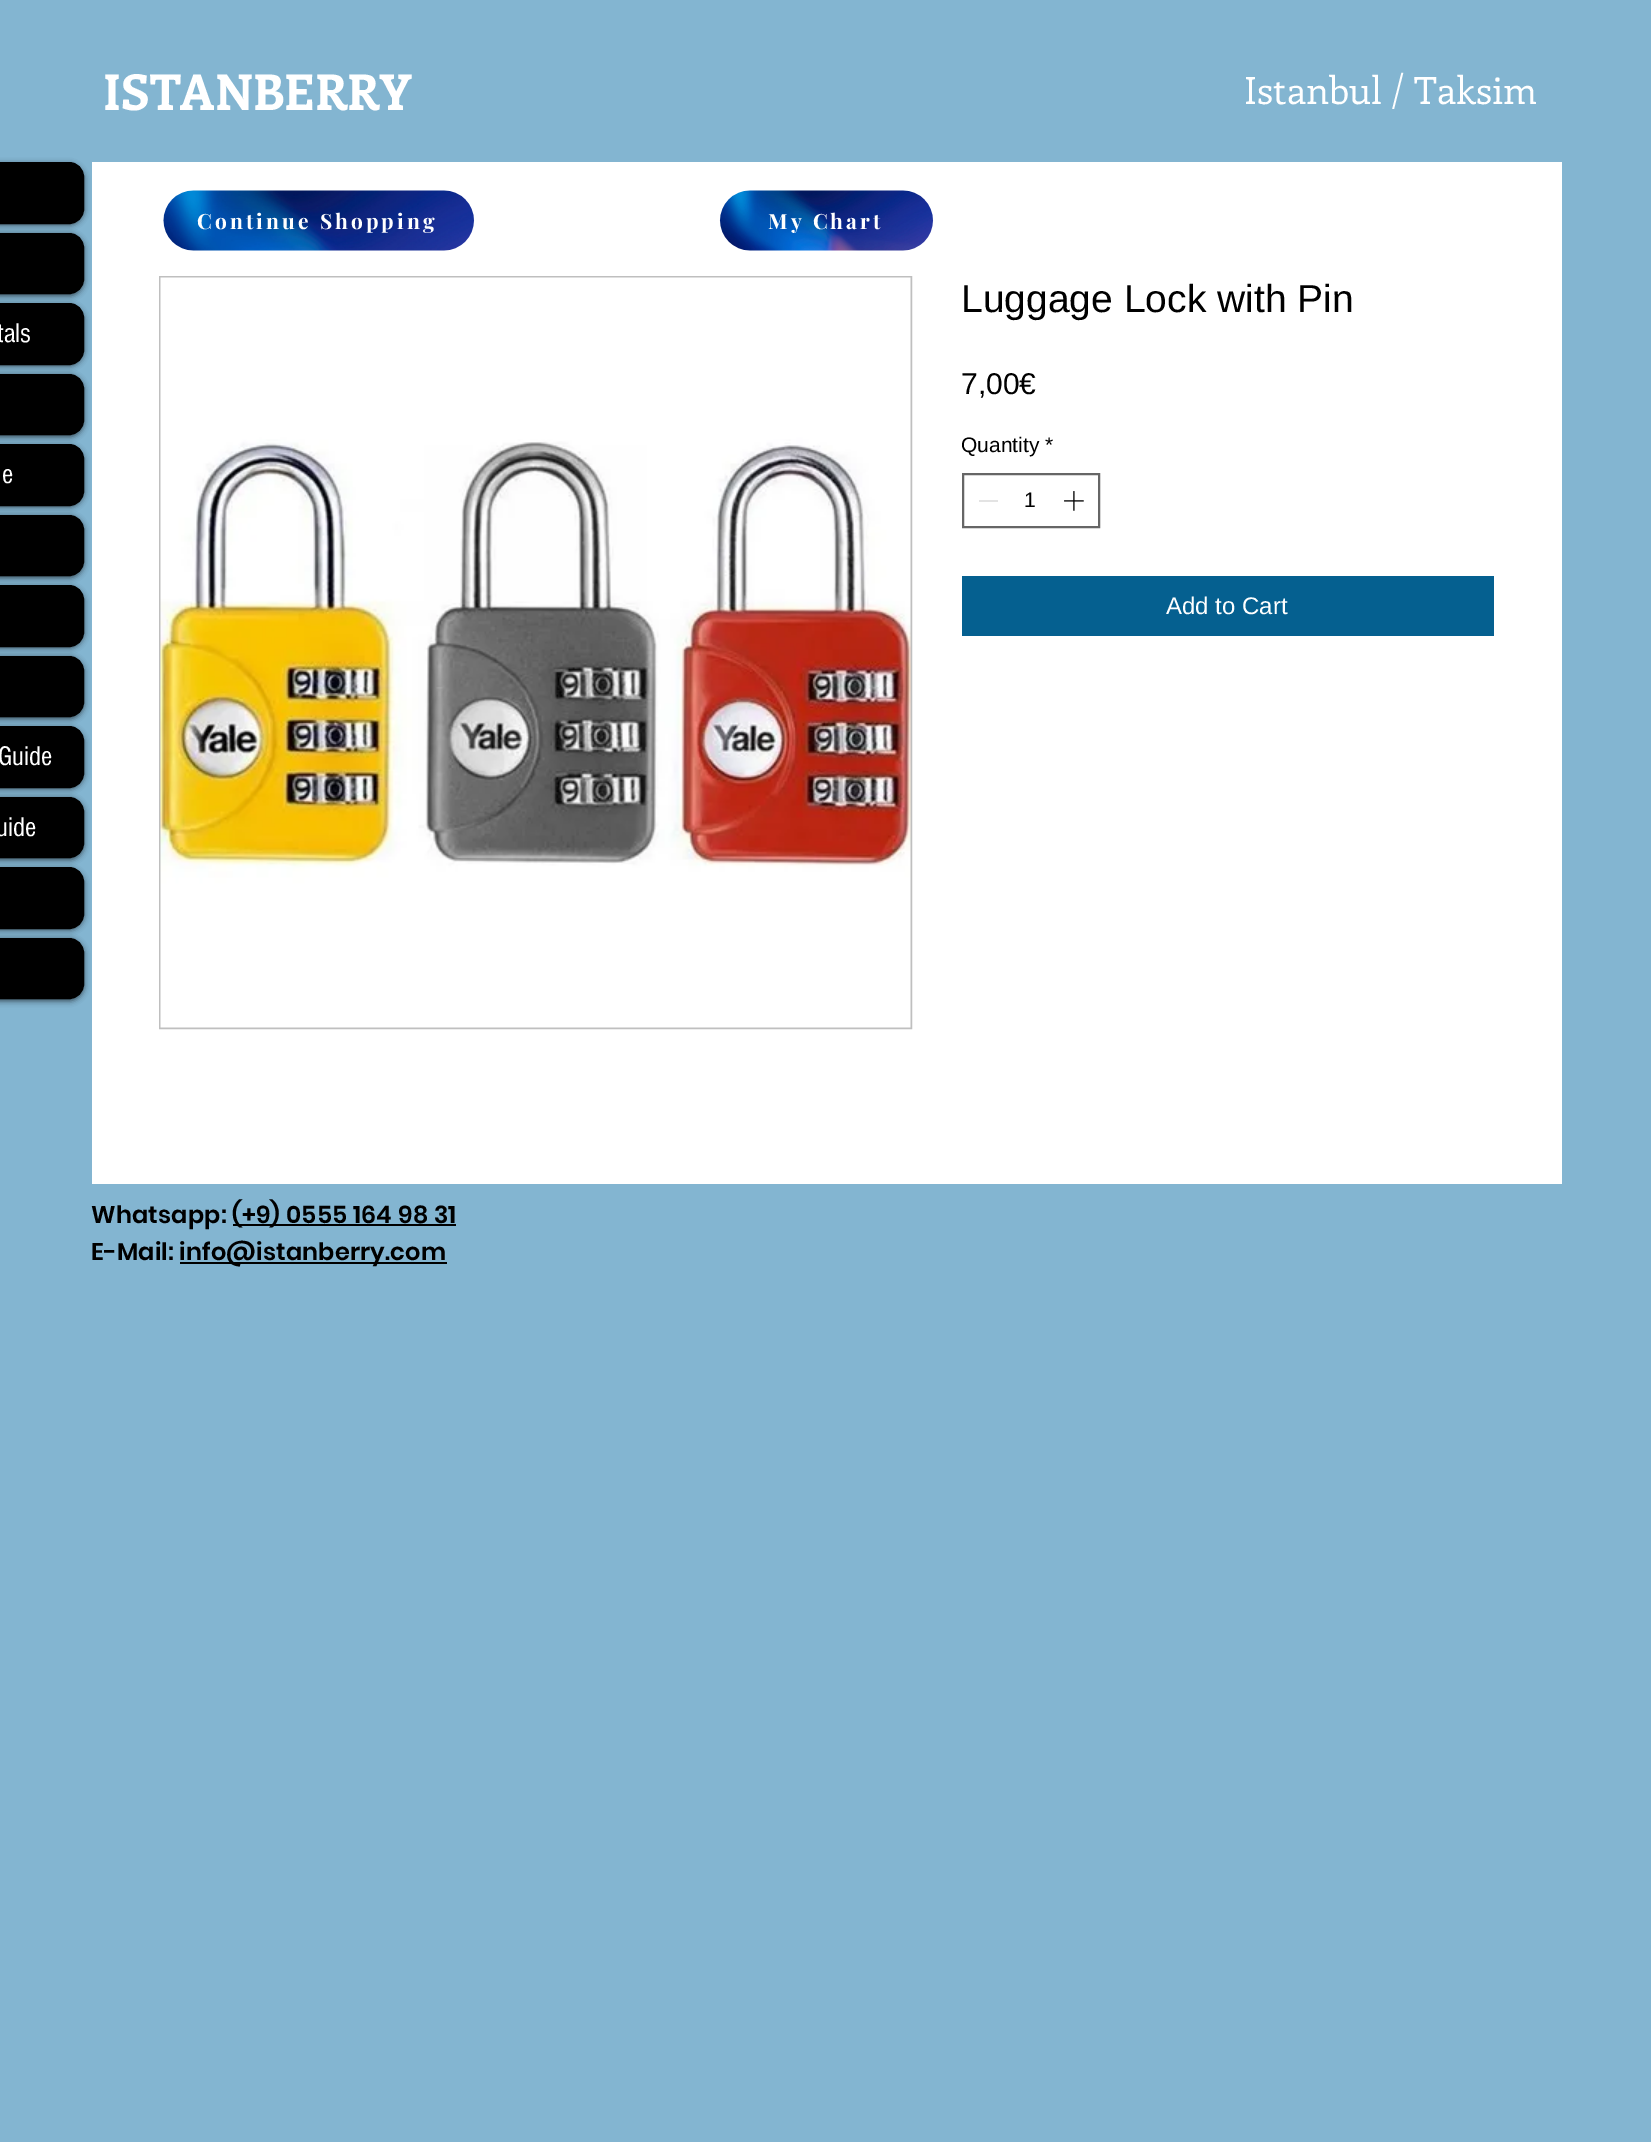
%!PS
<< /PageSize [1651 2142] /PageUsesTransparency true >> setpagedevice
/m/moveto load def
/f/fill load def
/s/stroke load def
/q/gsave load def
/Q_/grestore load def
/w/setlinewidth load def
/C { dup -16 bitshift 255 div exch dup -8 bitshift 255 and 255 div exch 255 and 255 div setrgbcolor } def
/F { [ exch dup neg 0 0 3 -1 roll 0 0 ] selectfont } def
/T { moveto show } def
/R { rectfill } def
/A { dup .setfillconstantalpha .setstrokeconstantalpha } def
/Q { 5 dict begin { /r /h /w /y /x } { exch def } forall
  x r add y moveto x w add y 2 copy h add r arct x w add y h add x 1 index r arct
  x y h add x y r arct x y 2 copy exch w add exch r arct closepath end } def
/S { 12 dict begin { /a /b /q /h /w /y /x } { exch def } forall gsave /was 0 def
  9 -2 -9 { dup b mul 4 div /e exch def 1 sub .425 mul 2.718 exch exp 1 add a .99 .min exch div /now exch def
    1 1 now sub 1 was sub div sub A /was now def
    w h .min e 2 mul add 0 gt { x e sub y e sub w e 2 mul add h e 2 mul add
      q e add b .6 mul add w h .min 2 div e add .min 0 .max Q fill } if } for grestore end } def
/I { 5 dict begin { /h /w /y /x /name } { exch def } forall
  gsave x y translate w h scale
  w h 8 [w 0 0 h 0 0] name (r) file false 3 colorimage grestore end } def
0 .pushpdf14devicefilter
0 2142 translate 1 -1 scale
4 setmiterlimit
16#83B5D1 C
0 0 1651 2142 R
/Enriqueta-Bold 49.5 F
16#FFFFFF C
(ISTANBERRY) 103 110 T
/Enriqueta-Regular 37.5 F
(Istanbul / Taksim) 1244 104 T
92 162 1470 1022 R
16#000000 C
-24 164 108 61 15 3 .6 S
-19 166 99 54 11 Q q f Q_
8 w
s
-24 234 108 62 15 3 .6 S
-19 237 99 53 11 Q q f Q_
s
-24 305 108 61 15 3 .6 S
-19 307 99 54 11 Q q f Q_
s
/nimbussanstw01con-Regular 28 F
16#FFFFFF C
(tals) -3 342 T
16#000000 C
-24 375 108 62 15 3 .6 S
-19 378 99 53 11 Q q f Q_
s
-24 446 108 61 15 3 .6 S
-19 448 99 54 11 Q q f Q_
s
16#FFFFFF C
(e) 2 483 T
16#000000 C
-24 516 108 62 15 3 .6 S
-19 519 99 53 11 Q q f Q_
s
-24 587 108 61 15 3 .6 S
-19 589 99 54 11 Q q f Q_
s
-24 657 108 62 15 3 .6 S
-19 660 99 53 11 Q q f Q_
s
-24 728 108 61 15 3 .6 S
-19 730 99 54 11 Q q f Q_
s
16#FFFFFF C
(Guide) -2 765 T
16#000000 C
-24 798 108 62 15 3 .6 S
-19 801 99 53 11 Q q f Q_
s
16#FFFFFF C
(uide) -4 836 T
16#000000 C
-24 869 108 61 15 3 .6 S
-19 871 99 54 11 Q q f Q_
s
-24 939 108 62 15 3 .6 S
-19 942 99 53 11 Q q f Q_
s
(1.rgb) 163 190 312 61 I
/PlayfairDisplay-Bold 21 F
16#FFFFFF C
197 229 m 3.1 0 (Continue Shopping) ashow
(2.rgb) 719 190 215 61 I
768 229 m 3.1 0 (My Chart) ashow
16#BFBFBF C
2 w
160 277 751 751 rectstroke
(3.rgb) 160 277 751 751 I
/LiberationSans-Regular 39 F
16#000000 C
(Luggage Lock with Pin) 961 312 T
/LiberationSans-Regular 30 F
(7,00€) 961 394 T
/LiberationSans-Regular 21 F
(Quantity *) 961 452 T
16#666666 C
963 474 136 53 rectstroke
16#E3E3E3 C
979 500 19 2 R
16#000000 C
(1) 1024 507 T
(4.rgb) 1064 491 20 20 I
16#056090 C
962 576 532 60 R
/LiberationSans-Regular 24 F
16#FFFFFF C
(Add to Cart) 1166 614 T
/Poppins-SemiBold 24 F
16#000000 C
91 1223 m .25 0 (Whatsapp:) ashow
233 1224 223 2 R
232 1223 m .25 0 (\(+9\) 0555 164 98 31) ashow
91 1260 m .25 0 (E-Mail:) ashow
180 1262 267 2 R
179 1260 m .25 0 (info@istanberry.com) ashow
.poppdf14devicefilter showpage
